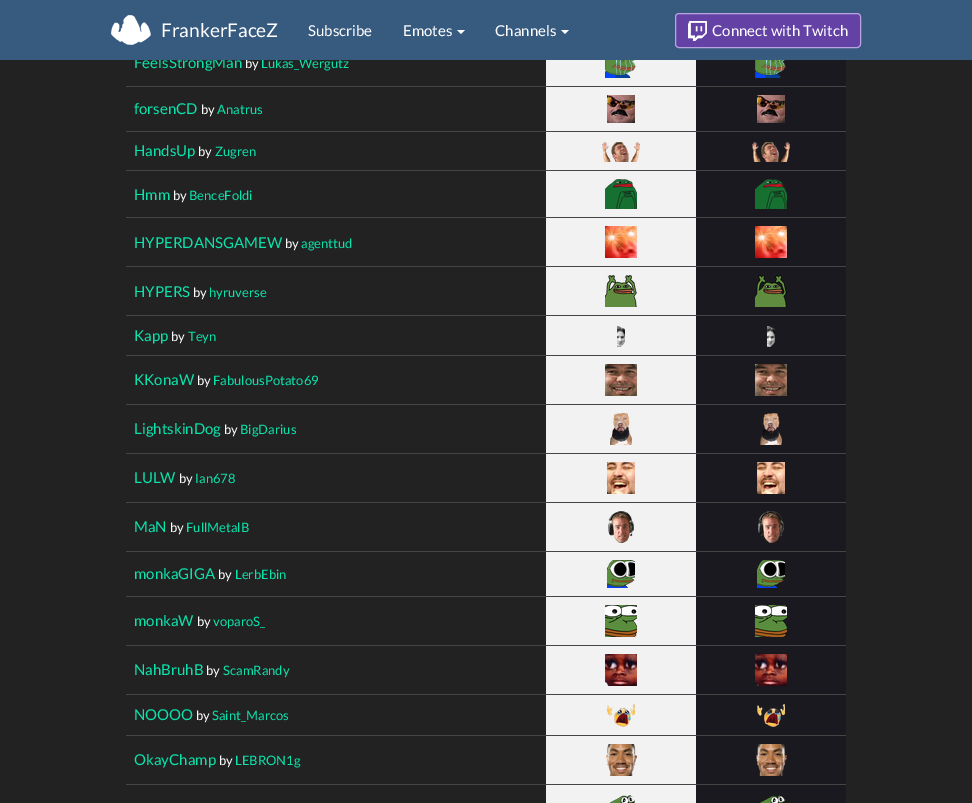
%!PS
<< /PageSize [972 803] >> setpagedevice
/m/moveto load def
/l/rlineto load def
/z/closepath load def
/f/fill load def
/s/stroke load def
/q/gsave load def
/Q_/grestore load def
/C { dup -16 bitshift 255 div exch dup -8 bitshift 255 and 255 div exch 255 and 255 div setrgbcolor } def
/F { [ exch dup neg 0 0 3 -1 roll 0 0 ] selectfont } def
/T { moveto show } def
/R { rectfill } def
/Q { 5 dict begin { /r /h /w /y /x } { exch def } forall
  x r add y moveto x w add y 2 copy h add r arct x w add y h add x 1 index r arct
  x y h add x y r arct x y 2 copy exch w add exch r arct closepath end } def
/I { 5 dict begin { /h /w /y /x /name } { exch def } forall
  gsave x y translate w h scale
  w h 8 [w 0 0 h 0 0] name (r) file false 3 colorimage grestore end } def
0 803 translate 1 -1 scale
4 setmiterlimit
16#222222 C
0 0 972 803 R
/Lato-Regular 15 F
16#0CE3AC C
(FeelsStrongMan) 134 68 T
/Lato-Regular 13 F
16#FFFFFF C
(by) 245 68 T
16#0CE3AC C
(Lukas_Wergutz) 261 68 T
16#375A7F C
0 0 972 60 R
(1.rgb) 111 15 40 30 I
/Lato-Regular 19 F
16#FFFFFF C
(FrankerFaceZ) 161 37 T
/Lato-Regular 15 F
(Subscribe) 308 36 T
(Emotes) 403 36 T
457 30 m 8 0 l -4 4 l z f
(Channels) 495 36 T
561 30 m 8 0 l -4 4 l z f
16#6441A5 C
675.5 13.5 185 34 3.5 Q q f Q_
16#B9A3E3 C
s
(2.rgb) 688 21 19 20 I
16#FFFFFF C
(Connect with Twitch) 712 36 T
16#F2F2F2 C
546 60 150 26 R
(3.rgb) 605 60 31 18 I
16#19191F C
696 60 150 26 R
(4.rgb) 755 60 31 18 I
696 87 150 44 R
16#464545 C
126 86 720 1 R
(5.rgb) 757 95 28 28 I
16#0CE3AC C
(forsenCD) 134 114 T
/Lato-Regular 13 F
16#FFFFFF C
(by) 201 114 T
16#0CE3AC C
(Anatrus) 217 114 T
16#F2F2F2 C
546 87 150 44 R
(5.rgb) 607 95 28 28 I
16#19191F C
696 132 150 38 R
16#464545 C
126 131 720 1 R
(6.rgb) 752 142 38 20 I
/Lato-Regular 15 F
16#0CE3AC C
(HandsUp) 134 156 T
/Lato-Regular 13 F
16#FFFFFF C
(by) 198 156 T
16#0CE3AC C
(Zugren) 215 156 T
16#F2F2F2 C
546 132 150 38 R
(7.rgb) 602 142 38 20 I
16#19191F C
696 171 150 46 R
16#464545 C
126 170 720 1 R
(8.rgb) 755 179 32 30 I
/Lato-Regular 15 F
16#0CE3AC C
(Hmm) 134 200 T
/Lato-Regular 13 F
16#FFFFFF C
(by) 173 200 T
16#0CE3AC C
(BenceFoldi) 189 200 T
16#F2F2F2 C
546 171 150 46 R
(9.rgb) 605 179 32 30 I
16#19191F C
696 218 150 48 R
16#464545 C
126 217 720 1 R
(10.rgb) 755 226 32 32 I
/Lato-Regular 15 F
16#0CE3AC C
(HYPERDANSGAMEW) 134 248 T
/Lato-Regular 13 F
16#FFFFFF C
(by) 285 248 T
16#0CE3AC C
(agenttud) 301 248 T
16#F2F2F2 C
546 218 150 48 R
(11.rgb) 605 226 32 32 I
16#19191F C
696 267 150 48 R
16#464545 C
126 266 720 1 R
(12.rgb) 755 275 32 32 I
/Lato-Regular 15 F
16#0CE3AC C
(HYPERS) 134 297 T
/Lato-Regular 13 F
16#FFFFFF C
(by) 193 297 T
16#0CE3AC C
(hyruverse) 209 297 T
16#F2F2F2 C
546 267 150 48 R
(13.rgb) 605 275 32 32 I
16#19191F C
696 316 150 39 R
16#464545 C
126 315 720 1 R
(14.rgb) 767 326 8 21 I
/Lato-Regular 15 F
16#0CE3AC C
(Kapp) 134 341 T
/Lato-Regular 13 F
16#FFFFFF C
(by) 171 341 T
16#0CE3AC C
(Teyn) 188 341 T
16#F2F2F2 C
546 316 150 39 R
(15.rgb) 617 326 8 21 I
16#19191F C
696 356 150 48 R
16#464545 C
126 355 720 1 R
(16.rgb) 755 364 32 32 I
/Lato-Regular 15 F
16#0CE3AC C
(KKonaW) 134 385 T
/Lato-Regular 13 F
16#FFFFFF C
(by) 197 385 T
16#0CE3AC C
(FabulousPotato69) 213 385 T
16#F2F2F2 C
546 356 150 48 R
(16.rgb) 605 364 32 32 I
16#19191F C
696 405 150 48 R
16#464545 C
126 404 720 1 R
(17.rgb) 760 413 22 32 I
/Lato-Regular 15 F
16#0CE3AC C
(LightskinDog) 134 434 T
/Lato-Regular 13 F
16#FFFFFF C
(by) 224 434 T
16#0CE3AC C
(BigDarius) 240 434 T
16#F2F2F2 C
546 405 150 48 R
(18.rgb) 610 413 22 32 I
16#19191F C
696 454 150 48 R
16#464545 C
126 453 720 1 R
(19.rgb) 757 462 28 32 I
/Lato-Regular 15 F
16#0CE3AC C
(LULW) 134 483 T
/Lato-Regular 13 F
16#FFFFFF C
(by) 179 483 T
16#0CE3AC C
(Ian678) 195 483 T
16#F2F2F2 C
546 454 150 48 R
(19.rgb) 607 462 28 32 I
16#19191F C
696 503 150 48 R
16#464545 C
126 502 720 1 R
(20.rgb) 758 511 26 32 I
/Lato-Regular 15 F
16#0CE3AC C
(MaN) 134 532 T
/Lato-Regular 13 F
16#FFFFFF C
(by) 170 532 T
16#0CE3AC C
(FullMetalB) 186 532 T
16#F2F2F2 C
546 503 150 48 R
(21.rgb) 608 511 26 32 I
16#19191F C
696 552 150 44 R
16#464545 C
126 551 720 1 R
(22.rgb) 757 560 28 28 I
/Lato-Regular 15 F
16#0CE3AC C
(monkaGIGA) 134 579 T
/Lato-Regular 13 F
16#FFFFFF C
(by) 218 579 T
16#0CE3AC C
(LerbEbin) 235 579 T
16#F2F2F2 C
546 552 150 44 R
(23.rgb) 607 560 28 28 I
16#19191F C
696 597 150 48 R
16#464545 C
126 596 720 1 R
(24.rgb) 755 605 32 32 I
/Lato-Regular 15 F
16#0CE3AC C
(monkaW) 134 626 T
/Lato-Regular 13 F
16#FFFFFF C
(by) 197 626 T
16#0CE3AC C
(voparoS_) 213 626 T
16#F2F2F2 C
546 597 150 48 R
(25.rgb) 605 605 32 32 I
16#19191F C
696 646 150 48 R
16#464545 C
126 645 720 1 R
(26.rgb) 755 654 32 32 I
/Lato-Regular 15 F
16#0CE3AC C
(NahBruhB) 134 675 T
/Lato-Regular 13 F
16#FFFFFF C
(by) 206 675 T
16#0CE3AC C
(ScamRandy) 223 675 T
16#F2F2F2 C
546 646 150 48 R
(27.rgb) 605 654 32 32 I
16#19191F C
696 695 150 40 R
16#464545 C
126 694 720 1 R
(28.rgb) 757 704 28 23 I
/Lato-Regular 15 F
16#0CE3AC C
(NOOOO) 134 720 T
/Lato-Regular 13 F
16#FFFFFF C
(by) 196 720 T
16#0CE3AC C
(Saint_Marcos) 212 720 T
16#F2F2F2 C
546 695 150 40 R
(29.rgb) 607 704 28 23 I
16#19191F C
696 736 150 48 R
16#464545 C
126 735 720 1 R
(30.rgb) 756 744 31 32 I
/Lato-Regular 15 F
16#0CE3AC C
(OkayChamp) 134 765 T
/Lato-Regular 13 F
16#FFFFFF C
(by) 219 765 T
16#0CE3AC C
(LEBRON1g) 235 765 T
16#F2F2F2 C
546 736 150 48 R
(31.rgb) 606 744 31 32 I
16#19191F C
696 785 150 18 R
16#464545 C
126 784 720 1 R
(32.rgb) 760 795 25 8 I
16#F2F2F2 C
546 785 150 18 R
(33.rgb) 609 795 26 8 I
showpage
